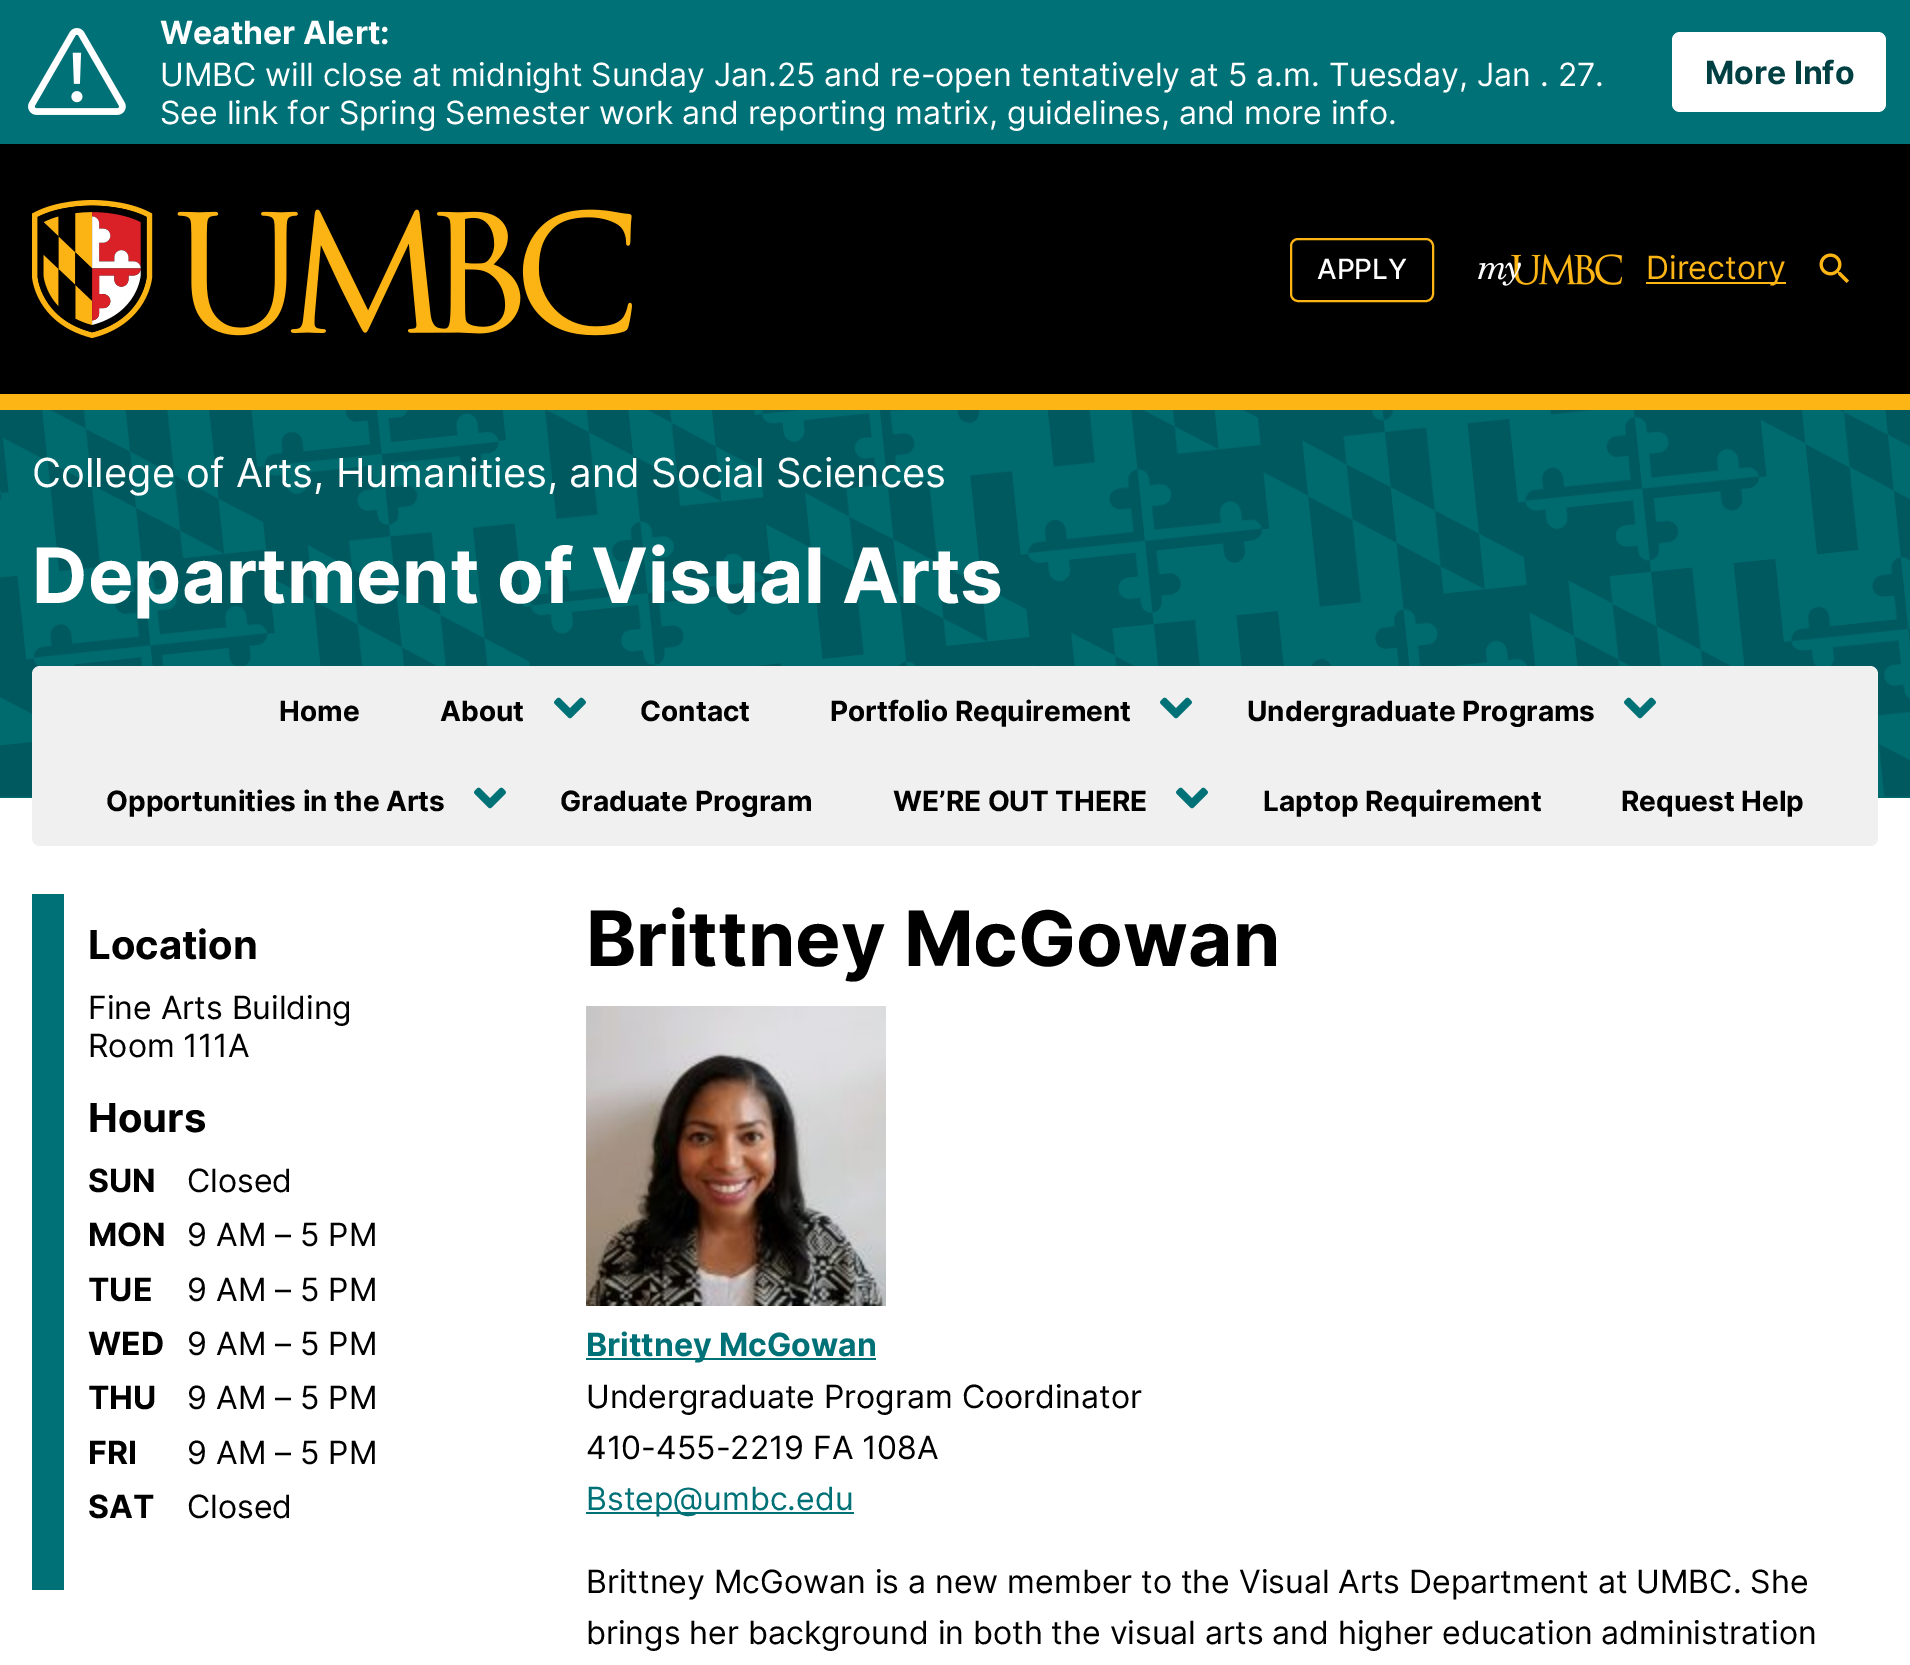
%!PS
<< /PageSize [1910 1665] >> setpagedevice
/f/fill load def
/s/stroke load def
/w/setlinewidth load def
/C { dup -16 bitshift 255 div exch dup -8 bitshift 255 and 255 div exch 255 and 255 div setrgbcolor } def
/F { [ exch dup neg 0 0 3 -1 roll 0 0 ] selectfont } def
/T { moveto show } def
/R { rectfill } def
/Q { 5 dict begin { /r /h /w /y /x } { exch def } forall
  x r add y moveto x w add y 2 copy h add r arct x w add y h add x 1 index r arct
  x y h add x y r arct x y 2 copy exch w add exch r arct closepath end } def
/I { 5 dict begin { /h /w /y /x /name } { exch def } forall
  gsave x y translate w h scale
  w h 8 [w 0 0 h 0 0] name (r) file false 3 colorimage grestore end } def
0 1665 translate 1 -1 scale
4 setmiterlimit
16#FFFFFF C
0 0 1910 1665 R
16#007176 C
0 0 1910 144 R
(1.rgb) 28 28 98 87 I
/Inter-Bold 32 F
16#FFFFFF C
(Weather Alert:) 160 44 T
/Inter-Regular 32 F
(UMBC will close at midnight Sunday Jan.25 and re-open tentatively at 5 a.m. Tuesday, Jan . 27.) 160 86 T
(See link for Spring Semester work and reporting matrix, guidelines, and more info.) 160 124 T
1672 32 214 80 8 Q f
/Inter-Bold 32 F
16#004043 C
(More Info) 1705 84 T
16#000000 C
0 144 1910 250 R
16#FDB515 C
0 394 1910 16 R
(2.rgb) 32 200 600 138 I
2 w
1291 239 142 62 7 Q s
/Inter-Medium 28 F
16#FFFFFF C
(APPLY) 1317 279 T
(3.rgb) 1478 254 144 32 I
16#FDB515 C
1646 282 140 2 R
/Inter-Regular 32 F
(Directory) 1646 279 T
(4.rgb) 1819 253 30 30 I
16#006B6F C
0 410 1910 388 R
(5.rgb) 0 410 1910 387 I
/Inter-Regular 40 F
16#FFFFFF C
(College of Arts, Humanities, and Social Sciences) 32 487 T
/Inter-Bold 76.4 F
(Department of Visual Arts) 32 603 T
16#EFF0EF C
32 666 1846 180 8 Q f
/Inter-Bold 28 F
16#000000 C
(Home) 279 721 T
(About) 440 721 T
(6.rgb) 554 697 32 22 I
(Contact) 640 721 T
(Portfolio Requirement) 830 721 T
(6.rgb) 1160 697 32 22 I
(Undergraduate Programs) 1247 721 T
(6.rgb) 1624 697 32 22 I
(Opportunities in the Arts) 106 811 T
(6.rgb) 474 787 32 22 I
(Graduate Program) 560 811 T
(WE’RE OUT THERE) 893 811 T
(6.rgb) 1176 787 32 22 I
(Laptop Requirement) 1263 811 T
(Request Help) 1621 811 T
16#007176 C
32 894 32 696 R
/Inter-Bold 40 F
16#000000 C
(Location) 88 959 T
/Inter-Regular 32 F
(Fine Arts Building) 88 1019 T
(Room 111A) 88 1057 T
/Inter-Bold 40 F
(Hours) 88 1132 T
/Inter-Bold 32 F
(SUN) 88 1192 T
/Inter-Regular 32 F
(Closed) 187 1192 T
/Inter-Bold 32 F
(MON) 88 1246 T
/Inter-Regular 32 F
(9 AM – 5 PM) 187 1246 T
/Inter-Bold 32 F
(TUE) 88 1301 T
/Inter-Regular 32 F
(9 AM – 5 PM) 187 1301 T
/Inter-Bold 32 F
(WED) 88 1355 T
/Inter-Regular 32 F
(9 AM – 5 PM) 187 1355 T
/Inter-Bold 32 F
(THU) 88 1409 T
/Inter-Regular 32 F
(9 AM – 5 PM) 187 1409 T
/Inter-Bold 32 F
(FRI) 88 1464 T
/Inter-Regular 32 F
(9 AM – 5 PM) 187 1464 T
/Inter-Bold 32 F
(SAT) 88 1518 T
/Inter-Regular 32 F
(Closed) 187 1518 T
/Inter-Bold 76.4 F
(Brittney McGowan) 586 966 T
(7.rgb) 586 1006 300 300 I
16#007176 C
586 1358 290 2 R
/Inter-Bold 32 F
(Brittney McGowan) 586 1356 T
/Inter-Regular 32 F
16#000000 C
(Undergraduate Program Coordinator) 586 1408 T
(410-455-2219 FA 108A) 586 1459 T
16#007176 C
586 1512 268 2 R
(Bstep@umbc.edu) 586 1510 T
16#000000 C
(Brittney McGowan is a new member to the Visual Arts Department at UMBC. She) 586 1593 T
(brings her background in both the visual arts and higher education administration) 586 1644 T
showpage
